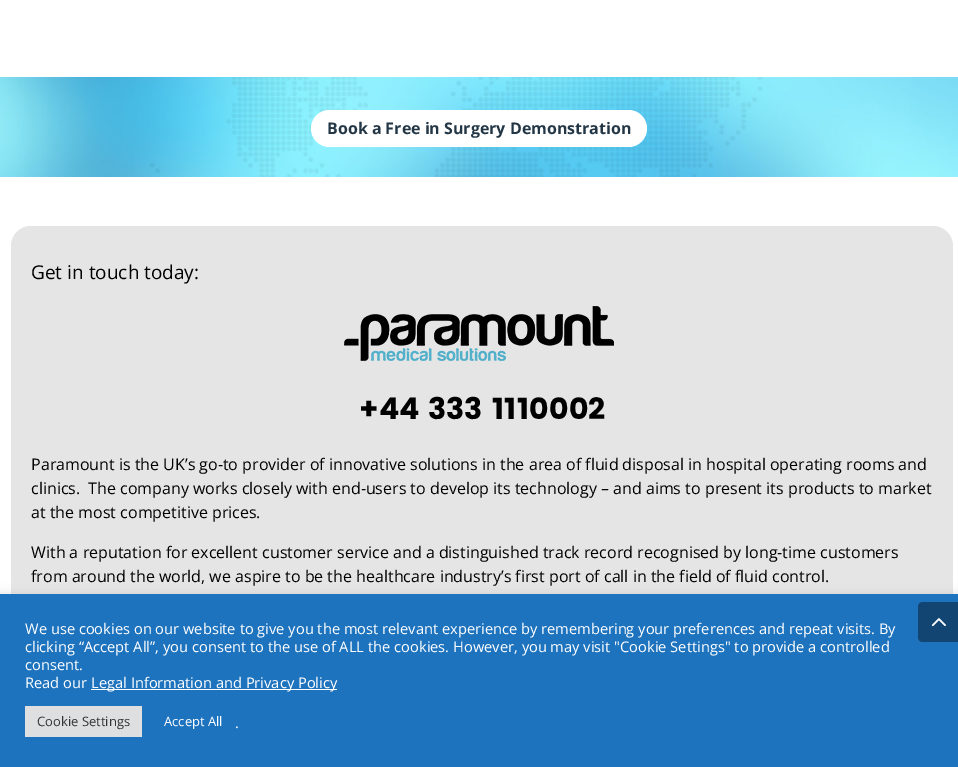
%!PS
<< /PageSize [958 767] /PageUsesTransparency true >> setpagedevice
/m/moveto load def
/l/rlineto load def
/c/rcurveto load def
/z/closepath load def
/f/fill load def
/C { dup -16 bitshift 255 div exch dup -8 bitshift 255 and 255 div exch 255 and 255 div setrgbcolor } def
/F { [ exch dup neg 0 0 3 -1 roll 0 0 ] selectfont } def
/T { moveto show } def
/R { rectfill } def
/A { dup .setfillconstantalpha .setstrokeconstantalpha } def
/Q { 5 dict begin { /r /h /w /y /x } { exch def } forall
  x r add y moveto x w add y 2 copy h add r arct x w add y h add x 1 index r arct
  x y h add x y r arct x y 2 copy exch w add exch r arct closepath end } def
/S { 12 dict begin { /a /b /q /h /w /y /x } { exch def } forall gsave /was 0 def
  9 -2 -9 { dup b mul 4 div /e exch def 1 sub .425 mul 2.718 exch exp 1 add a .99 .min exch div /now exch def
    1 1 now sub 1 was sub div sub A /was now def
    w h .min e 2 mul add 0 gt { x e sub y e sub w e 2 mul add h e 2 mul add
      q e add b .6 mul add w h .min 2 div e add .min 0 .max Q fill } if } for grestore end } def
/I { 5 dict begin { /h /w /y /x /name } { exch def } forall
  gsave x y translate w h scale
  w h 8 [w 0 0 h 0 0] name (r) file false 3 colorimage grestore end } def
0 .pushpdf14devicefilter
0 767 translate 1 -1 scale
4 setmiterlimit
16#FFFFFF C
0 0 958 767 R
(1.rgb) 0 77 958 100 I
311 110 336 37 18.5 Q f
/OpenSans-Bold 16 F
16#223645 C
(Book a Free in Surgery Demonstration) 327 134 T
16#E5E5E5 C
11 226 942 422 20 Q f
/OpenSans-Regular 19 F
16#000000 C
(Get in touch today:) 31 279 T
(2.rgb) 344 306 270 55 I
/Poppins-Bold 30 F
(+44 333 1110002) 359 419 T
/OpenSans-Regular 16 F
(Paramount is the UK’s go-to provider of innovative solutions in the area of fluid disposal in hospital operating rooms and) 31 470 T
(clinics.  The company works closely with end-users to develop its technology – and aims to present its products to market) 31 494 T
(at the most competitive prices.) 31 518 T
(With a reputation for excellent customer service and a distinguished track record recognised by long-time customers) 31 558 T
(from around the world, we aspire to be the healthcare industry’s first port of call in the field of fluid control.) 31 582 T
16#ACABAB C
0 593 958 173 0 5 .3 S
16#1E73BE C
0 594 958 173 R
/OpenSans-Regular 14.67 F
16#FFFFFF C
(We use cookies on our website to give you the most relevant experience by remembering your preferences and repeat visits. By) 25 634 T
(clicking “Accept All”, you consent to the use of ALL the cookies. However, you may visit "Cookie Settings" to provide a controlled) 25 652 T
(consent.) 25 670 T
(Read our) 25 688 T
91 689 246 1 R
(Legal Information and Privacy Policy) 91 688 T
16#DEDFE0 C
25 706 117 31 R
/OpenSans-Regular 13 F
16#333333 C
(Cookie Settings) 37 726 T
16#FFFFFF C
(Accept All) 164 726 T
/OpenSans-Regular 14.67 F
(.) 235 728 T
16#124572 C
923 602 m 35 0 l 0 40 l -35 0 l -3 0 -5 -2 -5 -5 c 0 -30 l 0 -3 2 -5 5 -5 c z f
(3.rgb) 931 618 15 9 I
.poppdf14devicefilter showpage
